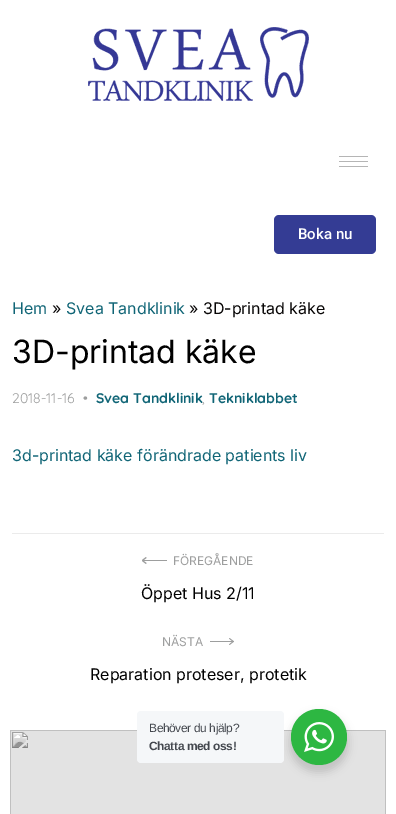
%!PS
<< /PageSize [396 814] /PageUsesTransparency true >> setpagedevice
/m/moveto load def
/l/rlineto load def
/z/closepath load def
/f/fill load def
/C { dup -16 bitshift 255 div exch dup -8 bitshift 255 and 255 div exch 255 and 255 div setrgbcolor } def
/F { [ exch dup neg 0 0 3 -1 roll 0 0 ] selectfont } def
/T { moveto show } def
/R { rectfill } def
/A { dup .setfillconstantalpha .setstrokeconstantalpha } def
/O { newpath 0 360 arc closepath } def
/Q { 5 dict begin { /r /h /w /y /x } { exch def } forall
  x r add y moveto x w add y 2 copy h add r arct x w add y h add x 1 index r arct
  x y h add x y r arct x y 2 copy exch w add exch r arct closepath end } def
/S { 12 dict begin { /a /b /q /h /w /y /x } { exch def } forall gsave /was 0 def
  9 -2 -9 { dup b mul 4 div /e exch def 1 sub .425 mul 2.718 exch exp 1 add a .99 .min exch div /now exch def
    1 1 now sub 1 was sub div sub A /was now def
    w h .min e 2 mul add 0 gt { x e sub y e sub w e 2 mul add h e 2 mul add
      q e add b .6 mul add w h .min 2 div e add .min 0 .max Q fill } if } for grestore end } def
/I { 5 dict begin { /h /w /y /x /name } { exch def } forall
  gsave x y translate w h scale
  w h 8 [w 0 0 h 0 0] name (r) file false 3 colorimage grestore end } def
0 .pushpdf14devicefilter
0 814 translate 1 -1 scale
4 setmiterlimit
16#FFFFFF C
0 0 396 814 R
(1.rgb) 88 27 221 74 I
16#B5B5B5 C
339 156 29 1 R
339 161 29 1 R
339 166 29 1 R
16#343C94 C
274 215 102 39 5 Q f
/Roboto-Medium 15 F
16#FFFFFF C
(Boka nu) 298 239 T
/Inter-Regular 16 F
16#106576 C
(Hem) 12 314 T
16#070505 C
(») 52 314 T
16#106576 C
(Svea Tandklinik) 66 314 T
16#070505 C
(» 3D-printad käke) 189 314 T
/Inter-Regular 32 F
16#000000 C
(3D-printad käke) 12 363 T
/Quicksand-Regular 14 F
16#9D9E9E C
(2018-11-16) 12 403 T
(•) 83 403 T
/Quicksand-Bold 14 F
16#106576 C
(Svea Tandklinik) 96 403 T
(Tekniklabbet) 209 403 T
/Quicksand-Regular 14 F
16#9D9E9E C
(,) 202 403 T
/Inter-Regular 16 F
16#106576 C
(3d-printad käke förändrade patients liv) 12 461 T
16#EBEBEB C
12 533 372 1 R
16#9D9E9E C
143 560 24 1 R
142.5 560 m 4 3 l -.5 1 l -4 -3 l z f
142 560 m 4 -3 l .5 1 l -4 3 l z f
/Inter-Regular 12 F
(FÖREGÅENDE) 173 565 T
/Inter-Regular 16 F
16#000000 C
(Öppet Hus 2/11) 141 599 T
/Inter-Regular 12 F
16#9D9E9E C
(NÄSTA) 162 646 T
210 641 24 1 R
229.5 638 m 4 3 l -.5 1 l -4 -3.5 l z f
229 644.5 m 4 -3.5 l .5 1 l -4 3 l z f
/Inter-Regular 16 F
16#000000 C
(Reparation proteser, protetik) 90 680 T
(3.rgb) 10 730 376 84 I
289 713 60 60 30 4 .14 S
16#F5F7F9 C
137 711 147 52 4 Q f
/LiberationSans-Regular 12 F
16#43474E C
149 732 m -.4 0 (Behöver du hjälp?) ashow
/LiberationSans-Bold 12 F
149 750 m -.4 0 (Chatta med oss!) ashow
16#2DB742 C
319 737 28 O f
(2.rgb) 304 722 30 30 I
.poppdf14devicefilter showpage
